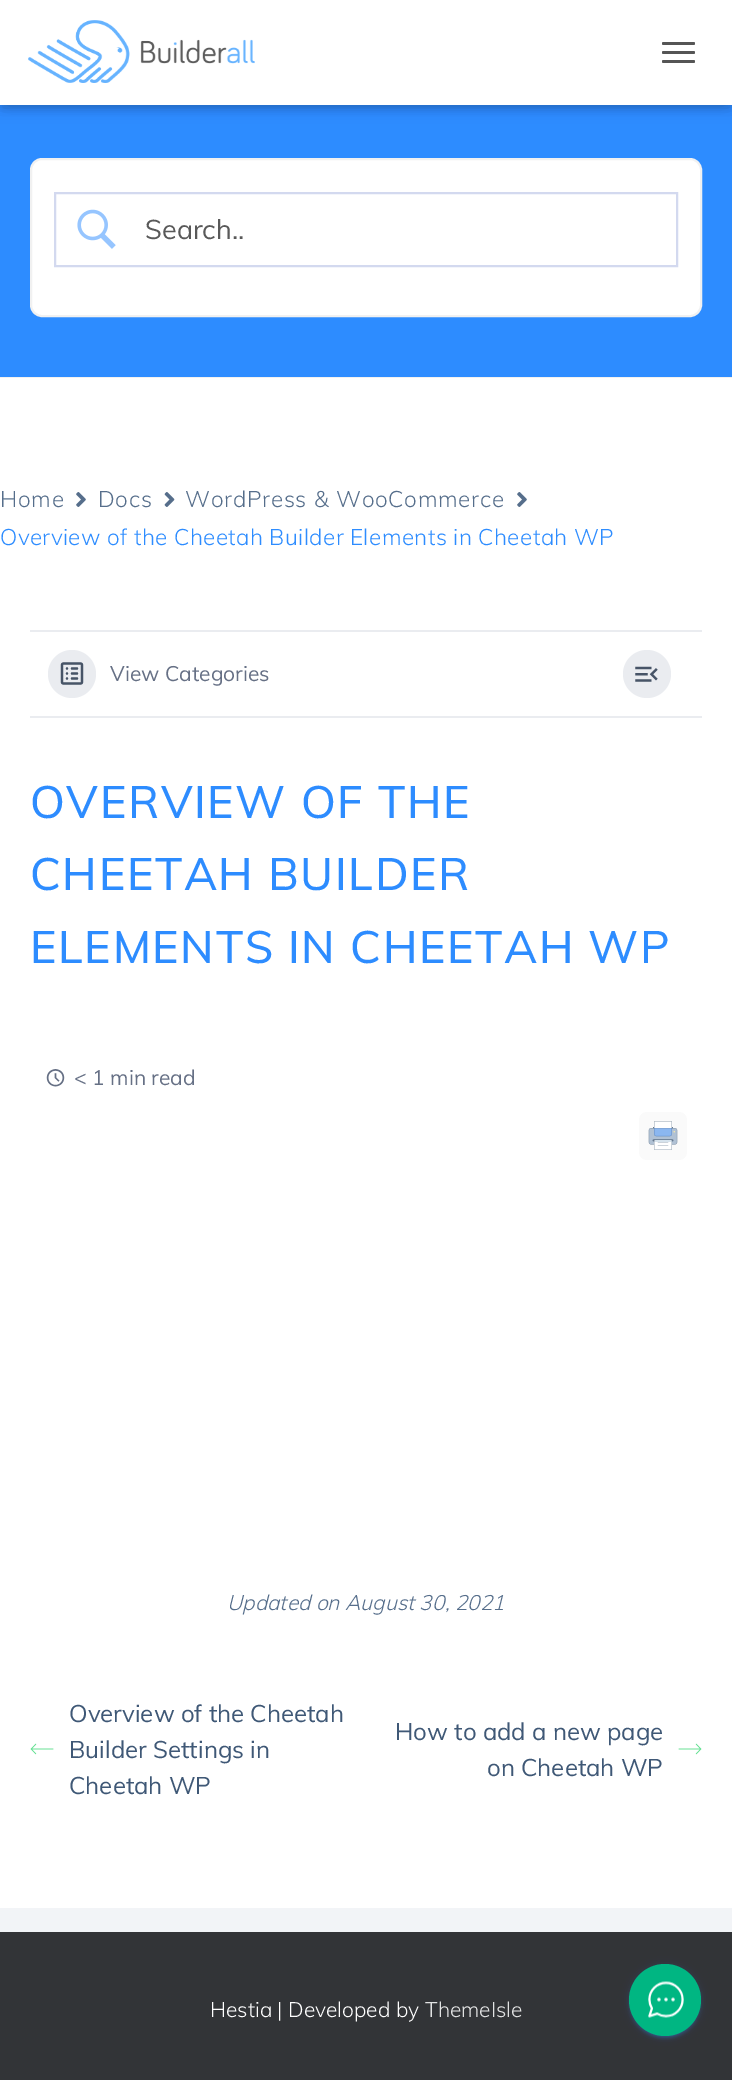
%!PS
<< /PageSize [732 2080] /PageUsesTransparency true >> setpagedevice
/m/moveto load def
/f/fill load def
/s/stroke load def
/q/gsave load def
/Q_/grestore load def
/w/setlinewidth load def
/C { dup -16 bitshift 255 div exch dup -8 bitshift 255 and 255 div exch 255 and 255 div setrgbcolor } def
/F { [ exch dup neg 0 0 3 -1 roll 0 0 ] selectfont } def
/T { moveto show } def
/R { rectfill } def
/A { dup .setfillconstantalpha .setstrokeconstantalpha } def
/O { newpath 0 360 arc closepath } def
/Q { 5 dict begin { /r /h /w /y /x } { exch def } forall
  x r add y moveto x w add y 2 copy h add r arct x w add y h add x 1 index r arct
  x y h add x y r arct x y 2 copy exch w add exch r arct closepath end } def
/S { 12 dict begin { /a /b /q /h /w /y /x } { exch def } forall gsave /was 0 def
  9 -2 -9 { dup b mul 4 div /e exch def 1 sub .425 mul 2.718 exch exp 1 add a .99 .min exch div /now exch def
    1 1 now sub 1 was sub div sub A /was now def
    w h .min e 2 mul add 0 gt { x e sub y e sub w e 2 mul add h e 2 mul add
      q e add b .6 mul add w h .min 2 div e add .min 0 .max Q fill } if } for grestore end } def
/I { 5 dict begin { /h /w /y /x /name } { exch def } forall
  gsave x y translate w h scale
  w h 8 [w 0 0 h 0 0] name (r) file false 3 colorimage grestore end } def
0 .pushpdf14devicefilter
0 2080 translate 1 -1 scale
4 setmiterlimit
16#F2F4F7 C
0 0 732 2080 R
16#2D8CFF C
0 105 732 272 R
16#000000 C
3 9 726 99 0 4 .1 S
0 2 732 105 0 7.5 .12 S
9 11 714 87 0 7.5 .42 S
16#FFFFFF C
0 0 732 105 R
(1.rgb) 28 20 227 63 I
16#555555 C
662 42 33 3 1.5 Q f
662 51 33 3 1.5 Q f
662 60 33 3 1.5 Q f
16#F1F1F1 C
0 377 732 1 R
16#FFFFFF C
31 159 670 157 11 Q q f Q_
16#F1F1F1 C
2 w
s
16#D3D9EF C
55 193 622 73 rectstroke
(2.rgb) 77 209 39 40 I
/Muli-Regular 27 F
16#595959 C
(Search..) 145 239 T
16#FFFFFF C
0 378 732 1530 R
/Muli-Light 22.5 F
16#566E8B C
0 507 m .75 0 (Home) ashow
(3.rgb) 76 492 10 15 I
98 507 m .75 0 (Docs) ashow
(4.rgb) 164 492 11 15 I
185 507 m .75 0 (WordPress & WooCommerce) ashow
(3.rgb) 517 492 10 15 I
16#2D8CFF C
0 545 m .4 0 (Overview of the Cheetah Builder Elements in Cheetah WP) ashow
16#EAECF0 C
30 630 672 2 R
30 716 672 2 R
72 674 24 O f
(5.rgb) 60 662 24 23 I
/Muli-Regular 21 F
16#667085 C
(View Categories) 110 681 T
16#EAECF0 C
647 674 24 O f
(6.rgb) 635 666 23 16 I
/Muli-Medium 45 F
16#2D8CFF C
30 818 m 1.6 0 (OVERVIEW OF THE) ashow
30 890 m 1.6 0 (CHEETAH BUILDER) ashow
30 963 m 1.6 0 (ELEMENTS IN CHEETAH WP) ashow
(7.rgb) 46 1069 19 18 I
/Muli-Regular 21 F
16#667085 C
(< 1 min read) 74 1085 T
16#FAFAFA C
639 1112 48 48 8 Q f
(8.rgb) 648 1121 30 29 I
/Muli-LightItalic 21 F
16#566E8B C
(Updated on August 30, 2021) 227 1610 T
/Muli-Regular 24 F
16#3F5876 C
(Overview of the Cheetah) 69 1722 T
(9.rgb) 30 1743 24 12 I
(Builder Settings in) 69 1758 T
(Cheetah WP) 69 1794 T
(How to add a new page) 395 1740 T
(10.rgb) 678 1743 24 12 I
(on Cheetah WP) 487 1776 T
16#323437 C
0 1932 732 148 R
/Muli-Light 21 F
16#FFFFFF C
(Hestia | Developed by) 210 2017 T
16#E2E3E3 C
(ThemeIsle) 425 2017 T
16#2D8CFF C
629 1965 72 72 36 4 .12 S
632 1971 66 66 33 1 .2 S
629 1967 72 72 36 1.5 .14 S
16#00B682 C
665 2000 36 O f
(11.rgb) 648 1981 36 37 I
.poppdf14devicefilter showpage
